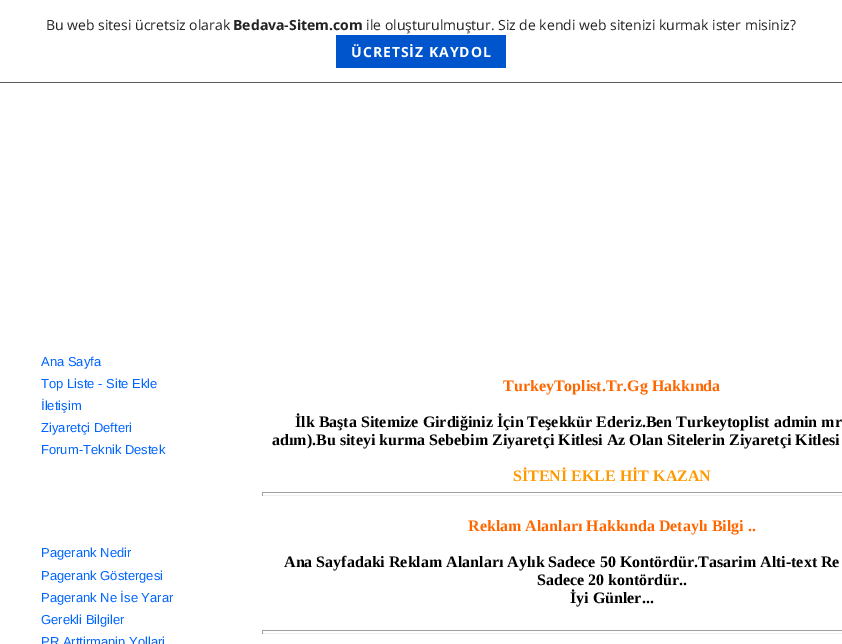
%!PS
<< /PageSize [842 644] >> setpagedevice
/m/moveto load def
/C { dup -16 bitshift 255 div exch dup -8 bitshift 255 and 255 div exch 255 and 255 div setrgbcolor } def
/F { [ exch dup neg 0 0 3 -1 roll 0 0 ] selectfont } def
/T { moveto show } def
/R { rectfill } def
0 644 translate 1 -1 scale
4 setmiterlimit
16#FFFFFF C
0 0 842 644 R
16#5A5A5A C
0 82 842 1 R
/OpenSans-Regular 14 F
16#232323 C
(Bu web sitesi ücretsiz olarak) 46 30 T
/OpenSans-Bold 14 F
(Bedava-Sitem.com) 233 30 T
/OpenSans-Regular 14 F
(ile oluşturulmuştur. Siz de kendi web sitenizi kurmak ister misiniz?) 366 30 T
16#0055CC C
336 35 170 33 R
/OpenSans-Bold 14 F
16#FFFFFF C
351 57 m 1 0 (ÜCRETSİZ KAYDOL) ashow
/LiberationSans-Regular 13 F
16#0065FF C
(Ana Sayfa) 41 366 T
(Top Liste - Site Ekle) 41 388 T
(İletişim) 41 410 T
(Ziyaretçi Defteri) 41 432 T
(Forum-Teknik Destek) 41 454 T
(Pagerank Nedir) 41 557 T
(Pagerank Göstergesi) 41 580 T
(Pagerank Ne İse Yarar) 41 602 T
(Gerekli Bilgiler) 41 624 T
(PR Arttirmanin Yollari) 41 646 T
/LiberationSerif-Bold 16 F
16#FF6600 C
(TurkeyToplist.Tr.Gg Hakkında) 503 391 T
16#000000 C
(İlk Başta Sitemize Girdiğiniz İçin Teşekkür Ederiz.Ben Turkeytoplist admin mr) 295 427 T
(adım\).Bu siteyi kurma Sebebim Ziyaretçi Kitlesi Az Olan Sitelerin Ziyaretçi Kitlesi) 272 445 T
16#FF9900 C
(SİTENİ EKLE HİT KAZAN) 513 481 T
16#9F9F9F C
262 492 580 1 R
16#EEEEEE C
262 495 580 1 R
16#9F9F9F C
262 492 1 4 R
16#FF6600 C
(Reklam Alanları Hakkında Detaylı Bilgi ..) 468 531 T
16#000000 C
(Ana Sayfadaki Reklam Alanları Aylık Sadece 50 Kontördür.Tasarim Alti-text Re) 284 567 T
(Sadece 20 kontördür..) 537 585 T
(İyi Günler...) 570 603 T
16#9F9F9F C
262 630 580 1 R
16#EEEEEE C
262 633 580 1 R
16#9F9F9F C
262 630 1 4 R
showpage
